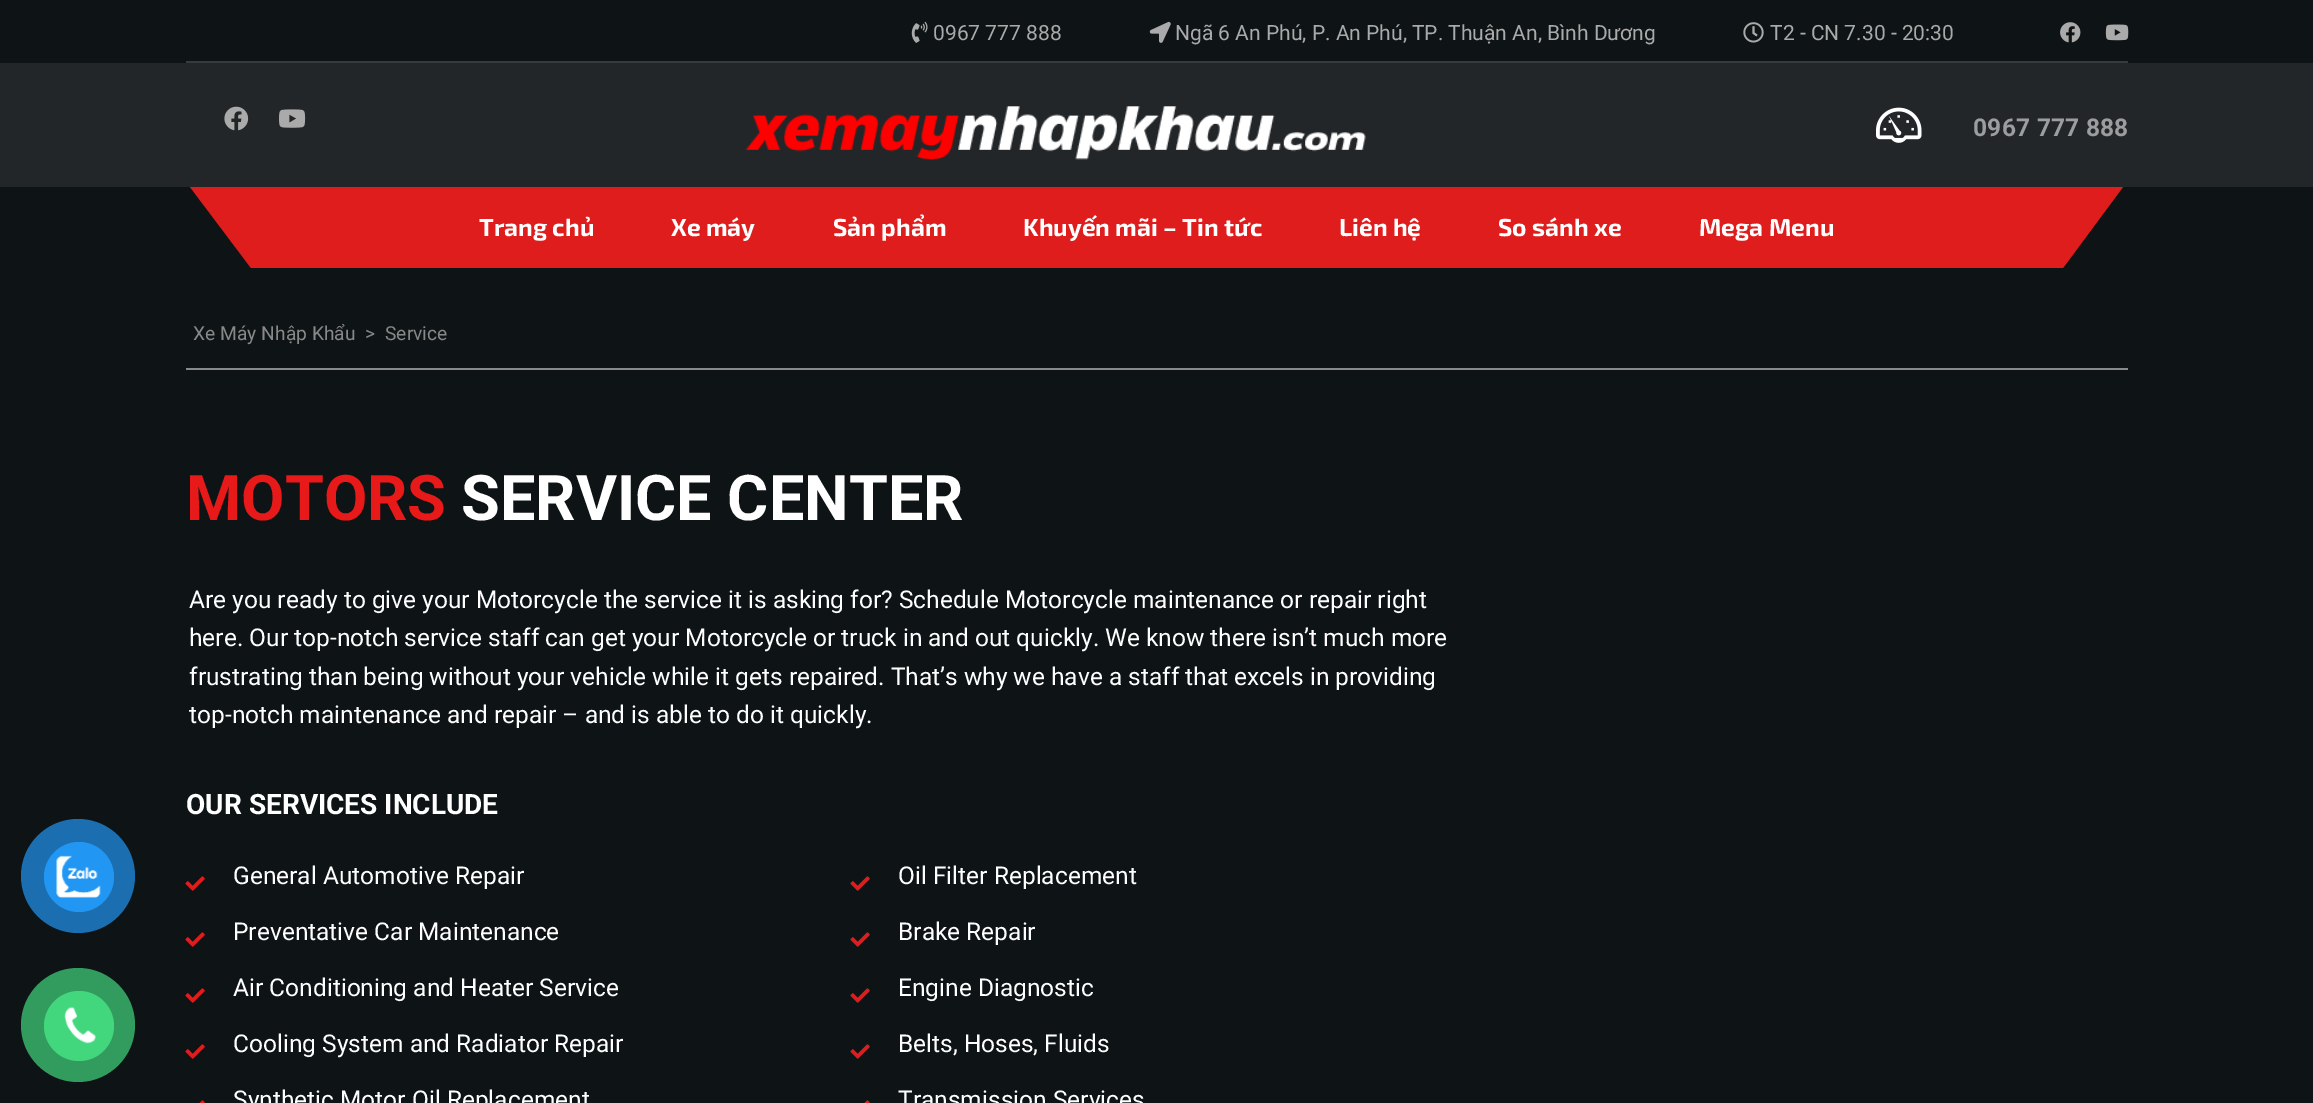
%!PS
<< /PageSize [2313 1103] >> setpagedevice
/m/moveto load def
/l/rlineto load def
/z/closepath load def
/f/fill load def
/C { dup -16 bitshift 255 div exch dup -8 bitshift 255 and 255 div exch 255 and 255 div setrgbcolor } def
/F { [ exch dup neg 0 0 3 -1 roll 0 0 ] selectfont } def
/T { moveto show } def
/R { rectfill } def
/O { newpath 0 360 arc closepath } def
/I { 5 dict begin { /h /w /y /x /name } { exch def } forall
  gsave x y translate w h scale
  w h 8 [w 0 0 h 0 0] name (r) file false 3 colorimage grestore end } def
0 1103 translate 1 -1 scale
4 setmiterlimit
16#0E1315 C
0 0 2313 1103 R
16#1B6FB0 C
78 876 57 O f
16#2196F3 C
79 877 35 O f
(1.rgb) 56 855 45 43 I
16#329C5E C
78 1025 57 O f
16#42D67D C
79 1026 35 O f
(2.rgb) 64 1006 32 38 I
16#373B3E C
186 61 1942 2 R
(3.rgb) 911 21 17 22 I
/Roboto-Regular 21 F
16#AAAAAA C
(0967 777 888) 933 40 T
(4.rgb) 1149 21 22 22 I
(Ngã 6 An Phú, P. An Phú, TP. Thuận An, Bình Dương) 1175 40 T
(5.rgb) 1743 22 21 21 I
(T2 - CN 7.30 - 20:30) 1770 40 T
(6.rgb) 2060 22 21 21 I
(7.rgb) 2105 24 24 17 I
16#232628 C
0 63 2313 124 R
(8.rgb) 224 106 25 25 I
(9.rgb) 279 109 27 19 I
(10.rgb) 745 106 621 54 I
(11.rgb) 1876 107 46 36 I
/Roboto-Bold 24.5 F
16#9C9D9E C
1973 136 m .25 0 (0967 777 888) ashow
16#DF1D1D C
190 187 m 350 0 l 61 81 l -350 0 l z f
1773 187 m 350 0 l -60 81 l -350 0 l z f
540 187 1233 81 R
/Exo2-Bold 24.5 F
16#FFFFFF C
(Trang chủ) 479 236 T
(Xe máy) 671 236 T
(Sản phẩm) 833 236 T
(Khuyến mãi – Tin tức) 1023 236 T
(Liên hệ) 1339 236 T
(So sánh xe) 1498 236 T
(Mega Menu) 1699 236 T
16#87898A C
186 368 1942 2 R
/Roboto-Regular 19.25 F
16#888888 C
(Xe Máy Nhập Khẩu) 193 340 T
(>) 365 340 T
(Service) 385 340 T
/Roboto-Bold 63 F
16#E71919 C
(MOTORS) 186 520 T
16#FFFFFF C
(SERVICE CENTER) 461 520 T
/Roboto-Regular 24.5 F
(Are you ready to give your Motorcycle the service it is asking for? Schedule Motorcycle maintenance or repair right) 189 608 T
(here. Our top-notch service staff can get your Motorcycle or truck in and out quickly. We know there isn’t much more) 189 646 T
(frustrating than being without your vehicle while it gets repaired. That’s why we have a staff that excels in providing) 189 685 T
(top-notch maintenance and repair – and is able to do it quickly.) 189 723 T
/Roboto-Bold 28 F
(OUR SERVICES INCLUDE) 186 814 T
(12.rgb) 185 876 20 15 I
/Roboto-Regular 24.5 F
(General Automotive Repair) 233 884 T
(12.rgb) 185 932 20 15 I
(Preventative Car Maintenance) 233 940 T
(12.rgb) 185 988 20 15 I
(Air Conditioning and Heater Service) 233 996 T
(12.rgb) 185 1044 20 15 I
(Cooling System and Radiator Repair) 233 1052 T
(13.rgb) 199 1100 6 3 I
(Synthetic Motor Oil Replacement) 233 1108 T
(12.rgb) 850 876 20 15 I
(Oil Filter Replacement) 898 884 T
(12.rgb) 850 932 20 15 I
(Brake Repair) 898 940 T
(12.rgb) 850 988 20 15 I
(Engine Diagnostic) 898 996 T
(12.rgb) 850 1044 20 15 I
(Belts, Hoses, Fluids) 898 1052 T
(13.rgb) 864 1100 6 3 I
(Transmission Services) 898 1108 T
showpage
